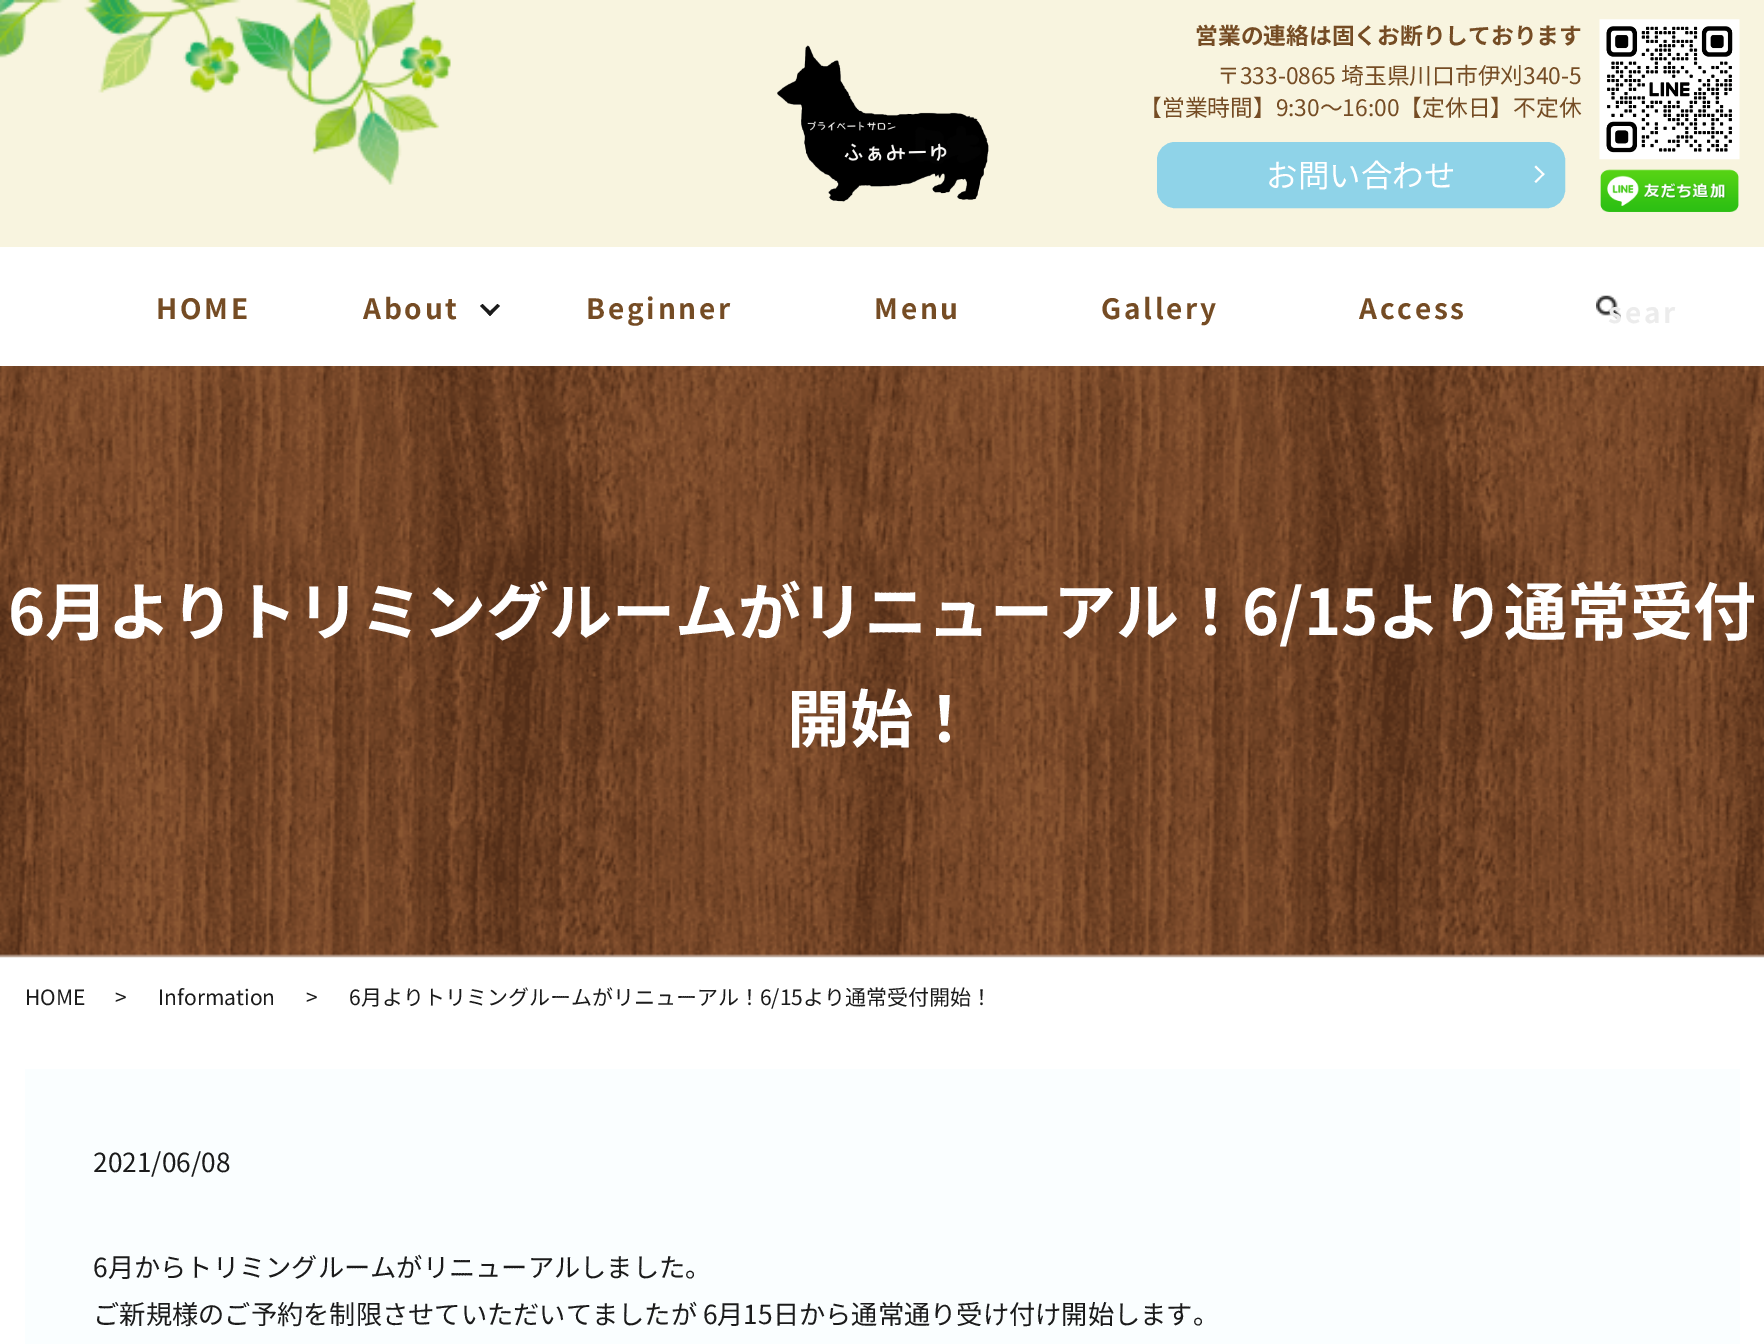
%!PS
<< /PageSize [1764 1344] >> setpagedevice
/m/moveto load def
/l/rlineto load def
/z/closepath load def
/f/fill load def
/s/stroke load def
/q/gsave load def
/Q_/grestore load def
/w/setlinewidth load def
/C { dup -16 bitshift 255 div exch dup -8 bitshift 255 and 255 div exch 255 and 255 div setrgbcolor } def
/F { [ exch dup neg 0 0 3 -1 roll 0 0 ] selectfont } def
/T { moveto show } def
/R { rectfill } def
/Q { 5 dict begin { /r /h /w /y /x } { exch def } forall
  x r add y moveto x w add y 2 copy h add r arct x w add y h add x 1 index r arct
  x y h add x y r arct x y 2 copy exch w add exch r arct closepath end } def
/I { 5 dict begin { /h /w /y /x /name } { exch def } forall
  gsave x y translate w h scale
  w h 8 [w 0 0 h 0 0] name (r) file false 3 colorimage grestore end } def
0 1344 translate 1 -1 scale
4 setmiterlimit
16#FFFFFF C
0 0 1764 1344 R
16#F8F4DF C
0 0 1764 247 R
(1.rgb) 0 0 451 185 I
(2.rgb) 777 45 212 157 I
/NotoSansJP-Bold 22.75 F
16#754C24 C
(営業の連絡は固くお断りしております) 1195 44 T
/NotoSansJP-Regular 22.75 F
(〒333-0865 埼玉県川口市伊刈340-5) 1217 84 T
(【営業時間】9:30～16:00【定休日】不定休) 1139 116 T
16#8FD3E8 C
1158 143 406 64 17 Q q f Q_
2 w
s
/NotoSansJP-Regular 31.5 F
16#FFFFFF C
(お問い合わせ) 1266 187 T
1536 165.5 m 8.5 8.5 l -1 1.5 l -9 -8.5 l z f
1543.5 173 m 1 1 l -8.5 9 l -1.5 -1.5 l z f
(3.rgb) 1599 19 141 141 I
(4.rgb) 1600 169 139 43 I
/NotoSansJP-Bold 28 F
16#754C24 C
156 319 m 2.75 0 (HOME) ashow
363 319 m 2.75 0 (About) ashow
16#1B1B1B C
500 306 m -10 10 l -2.5 -2.5 l 10 -9.5 l z f
492.5 313.5 m -2.5 2.5 l -10 -10 l 2.5 -2 l z f
16#754C24 C
586 319 m 2.75 0 (Beginner) ashow
874 319 m 2.75 0 (Menu) ashow
1101 319 m 2.75 0 (Gallery) ashow
1359 319 m 2.75 0 (Access) ashow
(5.rgb) 1596 295 25 24 I
16#ECECEC C
1608 323 m 2.75 0 (sear) ashow
(6.rgb) 0 366 1764 592 I
/NotoSansJP-Bold 63 F
16#FFFFFF C
(6月よりトリミングルームがリニューアル！6/15より通常受付) 8 635 T
(開始！) 787 742 T
/NotoSansJP-Regular 21 F
16#1B1B1B C
(HOME) 25 1005 T
(>) 115 1005 T
(Information) 158 1005 T
(>) 306 1005 T
(6月よりトリミングルームがリニューアル！6/15より通常受付開始！) 349 1005 T
16#FAFEFF C
25 1069 1715 275 R
/NotoSansJP-Regular 26.25 F
16#1B1B1B C
(2021/06/08) 93 1172 T
(6月からトリミングルームがリニューアルしました。) 93 1277 T
(ご新規様のご予約を制限させていただいてましたが 6月15日から通常通り受け付け開始します。) 93 1324 T
showpage
